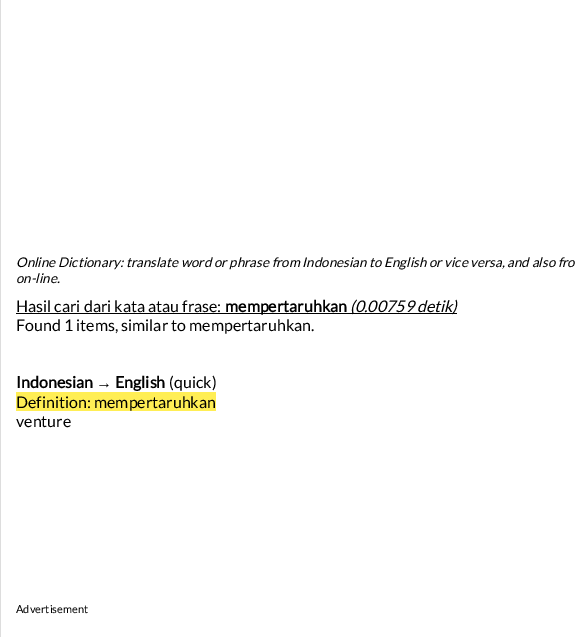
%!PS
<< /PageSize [579 637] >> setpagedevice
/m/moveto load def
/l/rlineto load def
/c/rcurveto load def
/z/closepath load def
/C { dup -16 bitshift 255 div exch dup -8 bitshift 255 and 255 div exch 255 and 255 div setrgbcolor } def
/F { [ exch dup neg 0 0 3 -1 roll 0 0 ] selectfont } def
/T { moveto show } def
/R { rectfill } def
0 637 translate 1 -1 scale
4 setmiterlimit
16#FFFFFF C
0 0 579 637 R
16#DDDDDD C
0 -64 m 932 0 l 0 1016 l 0 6 -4 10 -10 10 c -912 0 l -6 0 -10 -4 -10 -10 c z 1 -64 m 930 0 l 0 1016 l 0 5 -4 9 -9 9 c -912 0 l -5 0 -9 -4 -9 -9 c z eofill
/Lato-Italic 13.35 F
16#000000 C
(Online Dictionary: translate word or phrase from Indonesian to English or vice versa, and also fro) 16 267 T
(on-line.) 16 283 T
/Lato-Regular 16 F
(Hasil cari dari kata atau frase:) 16 312 T
16 313 436 1 R
/Lato-Bold 16 F
(mempertaruhkan) 225 312 T
/Lato-Italic 16 F
(\(0.00759 detik) 350 312 T
452 313 5 1 R
(\)) 452 312 T
/Lato-Regular 16 F
(Found 1 items, similar to mempertaruhkan.) 16 331 T
/Lato-Bold 16 F
(Indonesian) 16 388 T
/LiberationSans-Bold 16 F
(→) 96 388 T
/Lato-Bold 16 F
(English) 115 388 T
/Lato-Regular 16 F
(\(quick\)) 169 388 T
16#FFEE55 C
16 392 200 19 R
16#000000 C
(Definition: mempertaruhkan) 16 408 T
(venture) 16 427 T
/Lato-Regular 11 F
(Advertisement) 16 613 T
showpage
